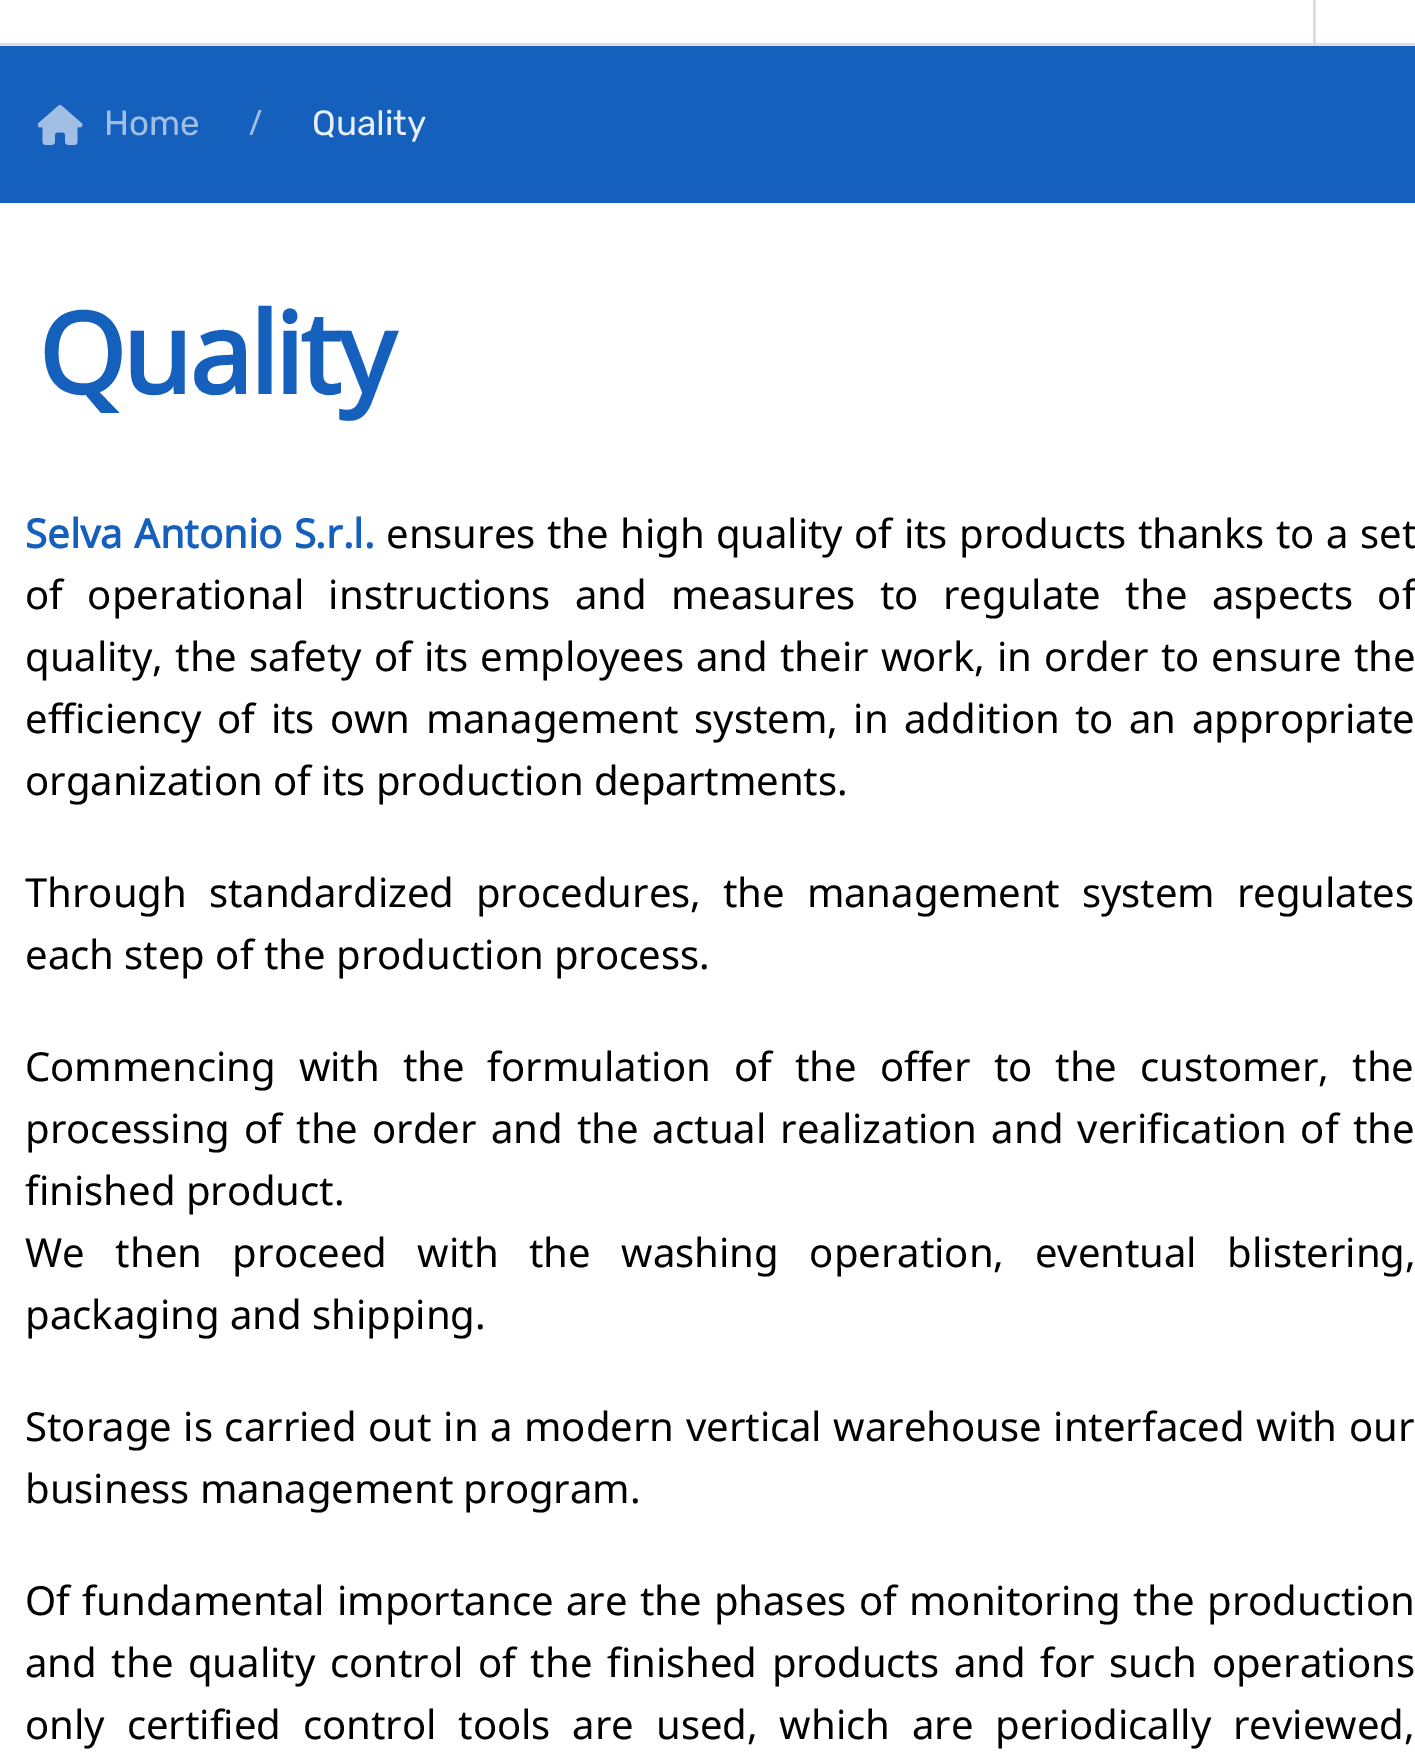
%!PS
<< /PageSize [1415 1752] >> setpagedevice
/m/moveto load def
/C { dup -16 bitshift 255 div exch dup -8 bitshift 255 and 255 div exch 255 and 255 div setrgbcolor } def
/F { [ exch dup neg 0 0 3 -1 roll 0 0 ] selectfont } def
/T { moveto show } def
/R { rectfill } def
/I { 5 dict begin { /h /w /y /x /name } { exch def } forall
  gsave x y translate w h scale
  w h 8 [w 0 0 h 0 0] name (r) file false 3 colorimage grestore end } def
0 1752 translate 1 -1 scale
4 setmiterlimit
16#FFFFFF C
0 0 1415 1752 R
16#DDDDDD C
0 43 1415 3 R
1313 0 3 45 R
16#1560BD C
0 46 1415 157 R
(1.rgb) 38 105 45 40 I
/Rubik-Light 35 F
16#A1BFE5 C
(Home) 104 135 T
/NotoSans-Regular 35 F
(/) 249 135 T
/Rubik-Light 35 F
16#E8EFF8 C
(Quality) 312 135 T
/NotoSans-Bold 112 F
16#1560BD C
38 394 m -3 0 (Quality) ashow
/NotoSans-Bold 40 F
25 548 m 1 0 32 (Selva Antonio S.r.l.) widthshow
/NotoSans-Regular 40 F
16#000000 C
386 548 m 1 0 32 (ensures the high quality of its products thanks to a set) widthshow
25 609 m 14 0 32 (of operational instructions and measures to regulate the aspects of) widthshow
25 671 m 1.75 0 32 (quality, the safety of its employees and their work, in order to ensure the) widthshow
25 733 m 5 0 32 (efficiency of its own management system, in addition to an appropriate) widthshow
(organization of its production departments.) 25 795 T
25 907 m 11.5 0 32 (Through standardized procedures, the management system regulates) widthshow
(each step of the production process.) 25 969 T
25 1081 m 12.75 0 32 (Commencing with the formulation of the offer to the customer, the) widthshow
25 1143 m 3.75 0 32 (processing of the order and the actual realization and verification of the) widthshow
(finished product.) 25 1205 T
25 1267 m 20.25 0 32 (We then proceed with the washing operation, eventual blistering,) widthshow
(packaging and shipping.) 25 1329 T
25 1441 m 1.25 0 32 (Storage is carried out in a modern vertical warehouse interfaced with our) widthshow
(business management program.) 25 1503 T
25 1615 m 2 0 32 (Of fundamental importance are the phases of monitoring the production) widthshow
25 1677 m 4.25 0 32 (and the quality control of the finished products and for such operations) widthshow
25 1739 m 11.5 0 32 (only certified control tools are used, which are periodically reviewed,) widthshow
showpage
